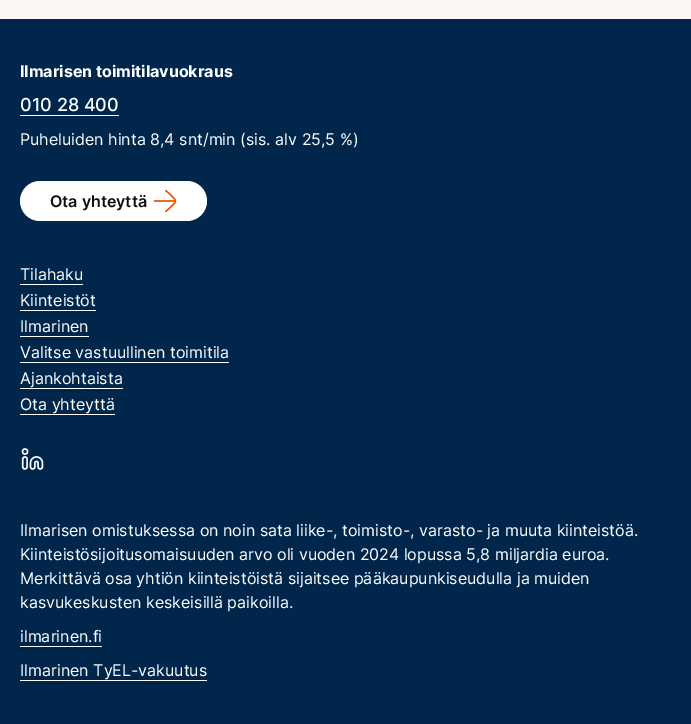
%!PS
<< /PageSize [691 724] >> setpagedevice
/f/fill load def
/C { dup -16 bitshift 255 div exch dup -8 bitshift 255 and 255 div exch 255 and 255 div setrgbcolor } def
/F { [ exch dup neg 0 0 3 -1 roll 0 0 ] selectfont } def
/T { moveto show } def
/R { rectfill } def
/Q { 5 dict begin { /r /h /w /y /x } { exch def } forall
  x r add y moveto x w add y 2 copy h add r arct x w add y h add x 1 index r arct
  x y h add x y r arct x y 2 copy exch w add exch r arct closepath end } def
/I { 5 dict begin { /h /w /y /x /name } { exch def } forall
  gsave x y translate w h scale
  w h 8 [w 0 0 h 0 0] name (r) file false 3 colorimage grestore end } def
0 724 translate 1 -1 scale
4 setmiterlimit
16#FCF7F4 C
0 0 691 724 R
16#00274B C
0 19 691 705 R
/Inter-Bold 16 F
16#FFFFFF C
(Ilmarisen toimitilavuokraus) 20 77 T
/Inter-Medium 18 F
(010 28 400) 20 111 T
20 115 99 1 R
/Inter-Regular 16 F
(Puheluiden hinta 8,4 snt/min \(sis. alv 25,5 %\)) 20 145 T
20 181 187 40 20 Q f
/Inter-SemiBold 16 F
16#0F0F0F C
(Ota yhteyttä) 50 207 T
(1.rgb) 153 189 24 24 I
/Inter-Regular 16 F
16#FFFFFF C
(Tilahaku) 20 280 T
20 284 63 1 R
(Kiinteistöt) 20 306 T
20 310 76 1 R
(Ilmarinen) 20 332 T
20 336 69 1 R
(Valitse vastuullinen toimitila) 20 358 T
20 362 209 1 R
(Ajankohtaista) 20 384 T
20 388 103 1 R
(Ota yhteyttä) 20 410 T
20 414 95 1 R
(2.rgb) 21 448 23 22 I
(Ilmarisen omistuksessa on noin sata liike-, toimisto-, varasto- ja muuta kiinteistöä.) 20 536 T
(Kiinteistösijoitusomaisuuden arvo oli vuoden 2024 lopussa 5,8 miljardia euroa.) 20 560 T
(Merkittävä osa yhtiön kiinteistöistä sijaitsee pääkaupunkiseudulla ja muiden) 20 584 T
(kasvukeskusten keskeisillä paikoilla.) 20 608 T
(ilmarinen.fi) 20 642 T
20 646 82 1 R
(Ilmarinen TyEL-vakuutus) 20 676 T
20 680 187 1 R
showpage
